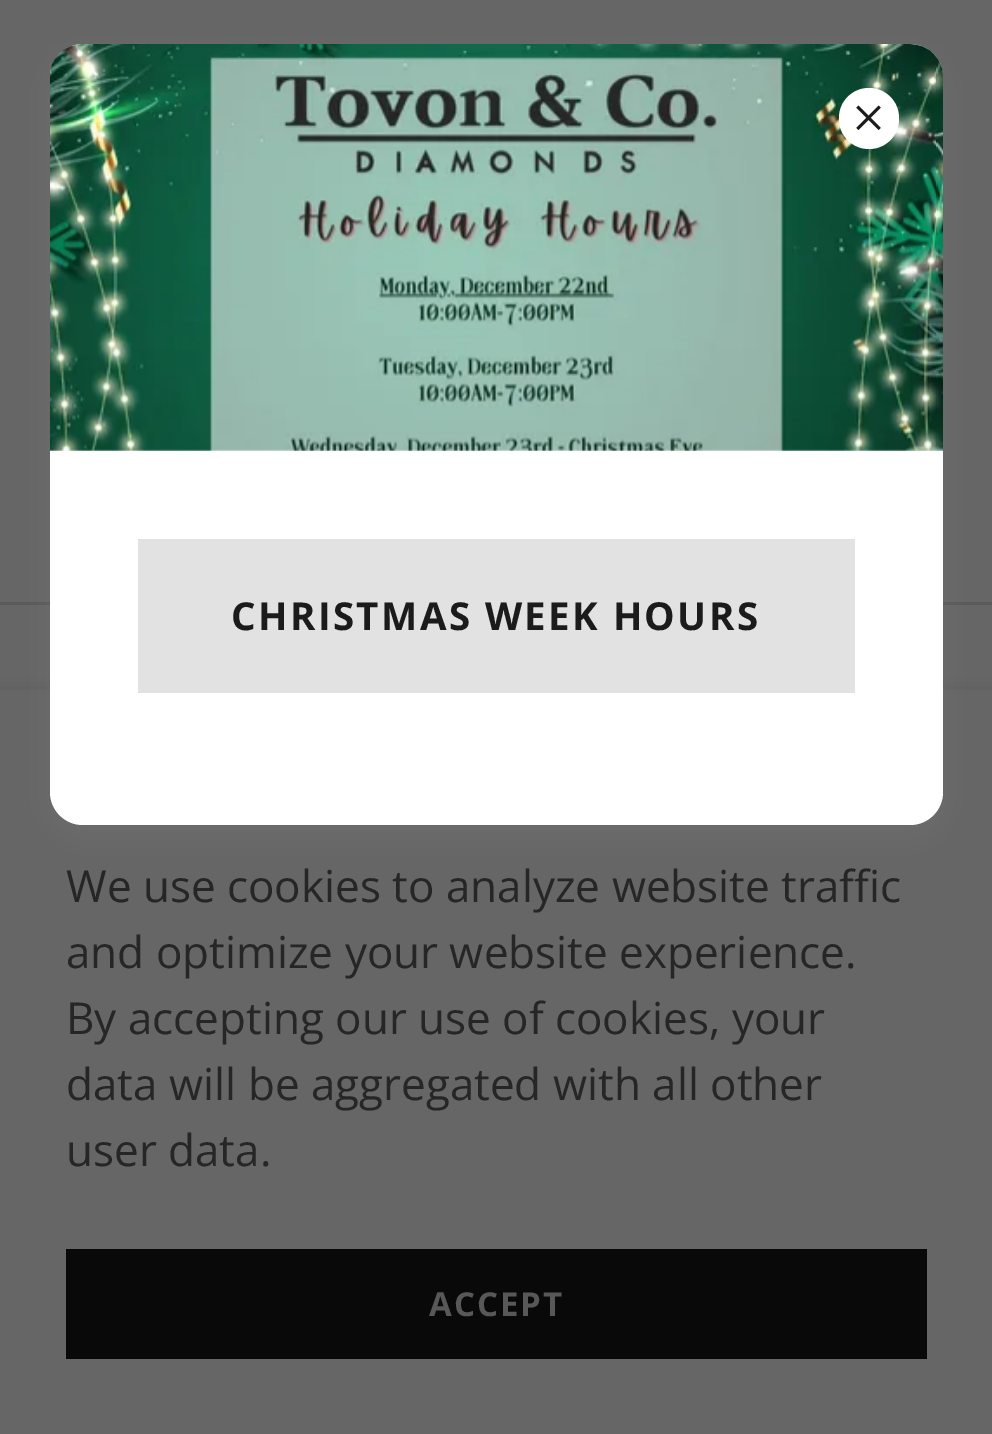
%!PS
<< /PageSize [992 1434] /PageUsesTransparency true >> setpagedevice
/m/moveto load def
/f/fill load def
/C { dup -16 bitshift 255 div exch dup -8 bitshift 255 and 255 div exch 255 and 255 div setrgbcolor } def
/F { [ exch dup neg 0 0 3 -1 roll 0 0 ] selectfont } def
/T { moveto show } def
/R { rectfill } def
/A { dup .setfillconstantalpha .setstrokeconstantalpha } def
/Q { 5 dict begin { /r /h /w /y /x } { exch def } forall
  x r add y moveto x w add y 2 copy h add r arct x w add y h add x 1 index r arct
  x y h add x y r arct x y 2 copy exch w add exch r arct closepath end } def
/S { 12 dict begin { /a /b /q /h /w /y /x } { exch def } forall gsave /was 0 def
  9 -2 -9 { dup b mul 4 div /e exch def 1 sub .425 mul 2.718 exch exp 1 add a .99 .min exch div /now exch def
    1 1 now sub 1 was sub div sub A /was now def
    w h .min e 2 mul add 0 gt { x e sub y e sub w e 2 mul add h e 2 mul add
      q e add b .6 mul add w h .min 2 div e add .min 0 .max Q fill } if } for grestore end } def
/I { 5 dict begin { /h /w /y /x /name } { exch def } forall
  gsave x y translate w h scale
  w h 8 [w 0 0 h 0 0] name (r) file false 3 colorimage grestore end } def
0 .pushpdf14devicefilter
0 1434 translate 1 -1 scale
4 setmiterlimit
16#666666 C
0 0 992 1434 R
16#5A5A5A C
0 602 992 3 R
16#000000 C
0 696 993 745 0 8 .3 S
16#666666 C
0 690 992 744 R
16#757575 C
50 55 893 781 33 16.5 .4 S
16#FFFFFF C
50 44 893 781 33 Q f
(2.rgb) 50 44 893 407 I
839 88 60 61 30 Q f
(1.rgb) 856 105 25 25 I
16#E2E2E2 C
138 539 717 154 R
/OpenSans-Bold 38.5 F
16#1B1B1B C
231 630 m 2.4 0 (CHRISTMAS WEEK HOURS) ashow
/OpenSans-Regular 44 F
16#262626 C
(We use cookies to analyze website traffic) 66 902 T
(and optimize your website experience.) 66 968 T
(By accepting our use of cookies, your) 66 1034 T
(data will be aggregated with all other) 66 1100 T
(user data.) 66 1166 T
16#090909 C
66 1249 861 110 R
/OpenSans-Bold 33 F
16#585858 C
429 1316 m 2 0 (ACCEPT) ashow
.poppdf14devicefilter showpage
